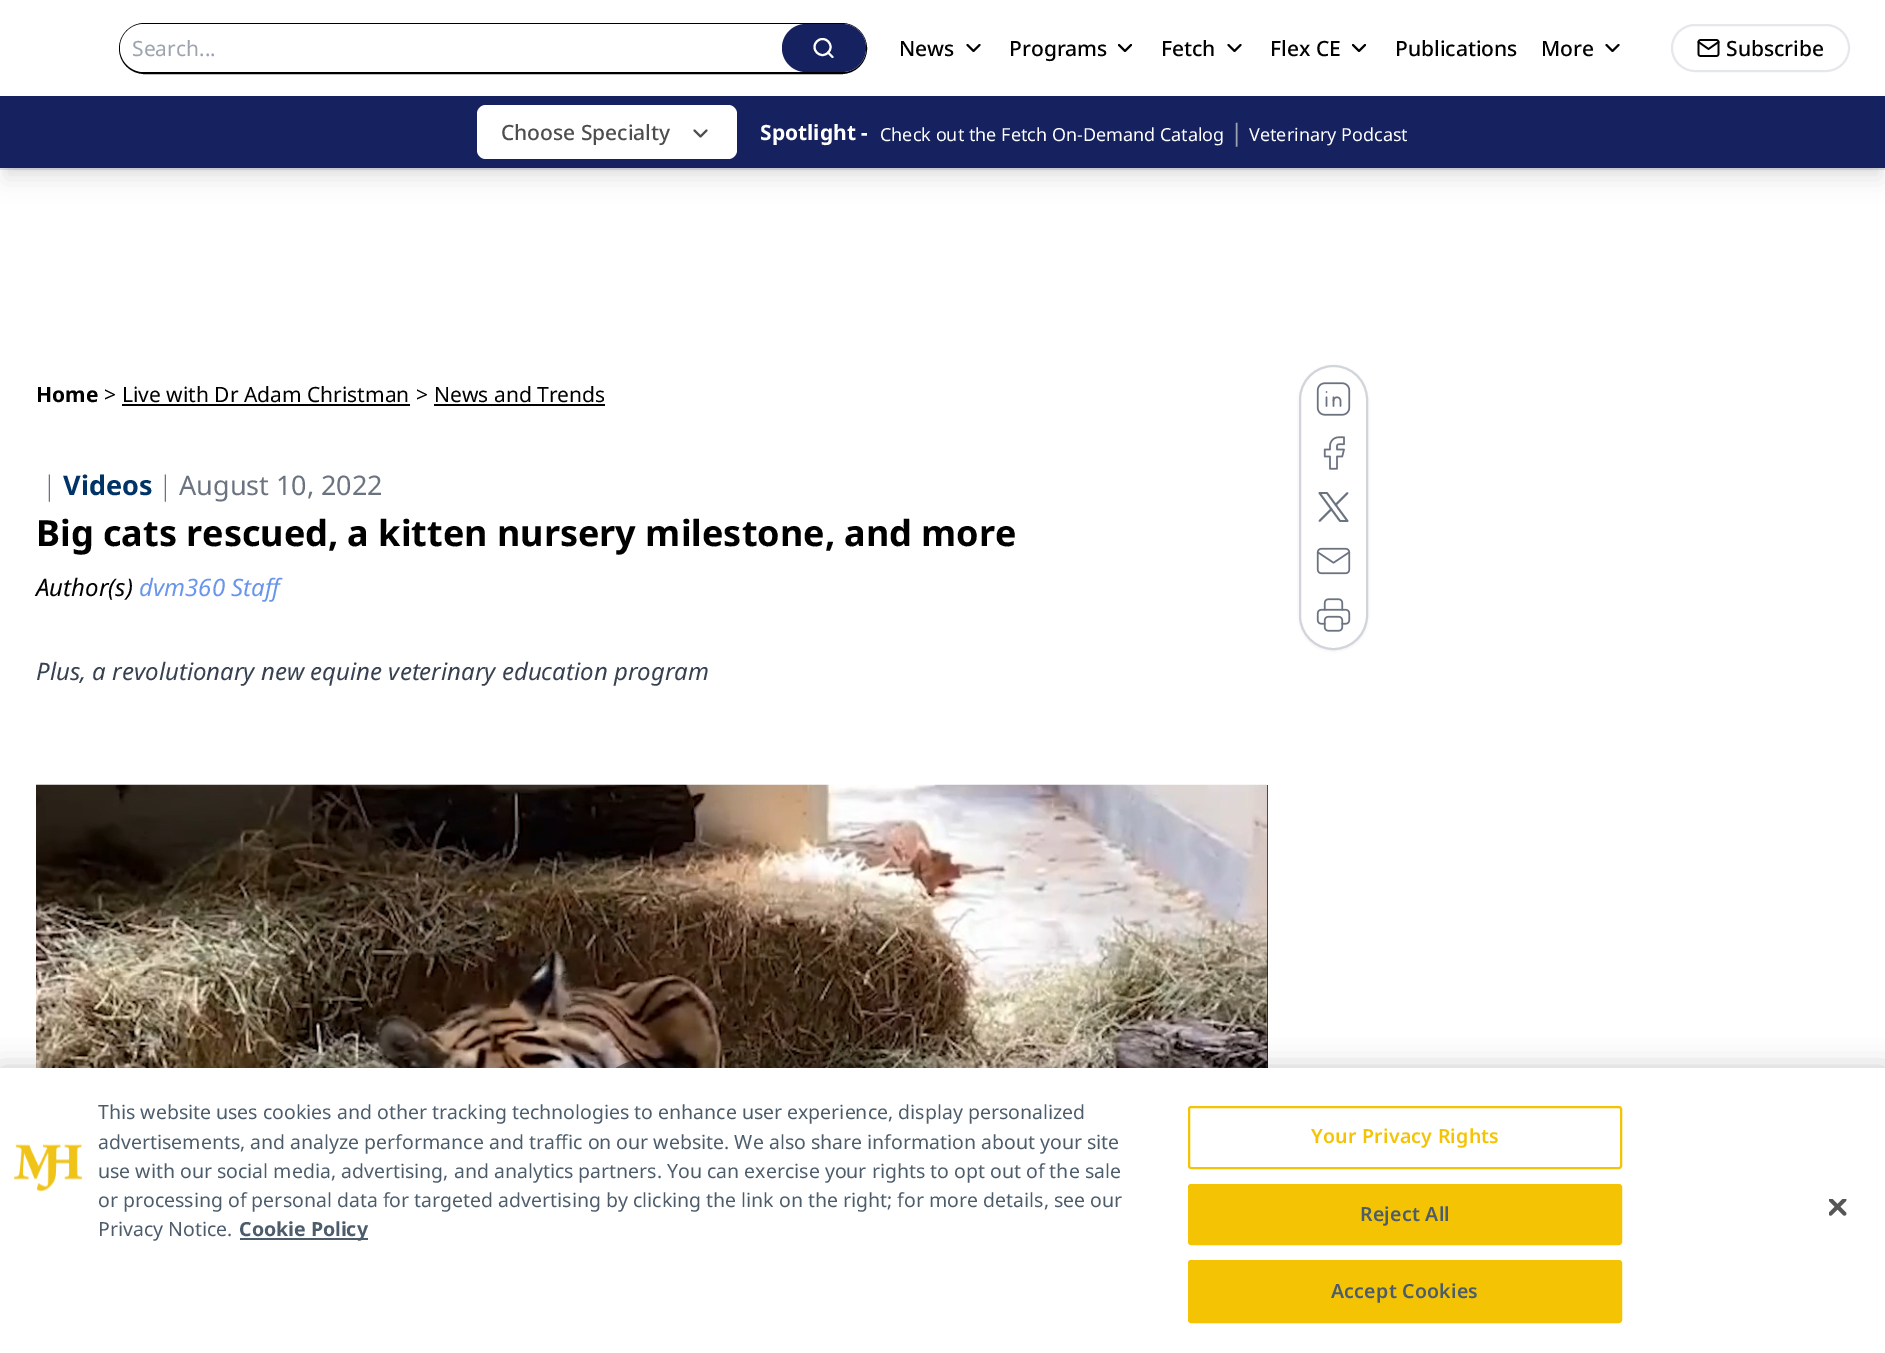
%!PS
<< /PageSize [1885 1353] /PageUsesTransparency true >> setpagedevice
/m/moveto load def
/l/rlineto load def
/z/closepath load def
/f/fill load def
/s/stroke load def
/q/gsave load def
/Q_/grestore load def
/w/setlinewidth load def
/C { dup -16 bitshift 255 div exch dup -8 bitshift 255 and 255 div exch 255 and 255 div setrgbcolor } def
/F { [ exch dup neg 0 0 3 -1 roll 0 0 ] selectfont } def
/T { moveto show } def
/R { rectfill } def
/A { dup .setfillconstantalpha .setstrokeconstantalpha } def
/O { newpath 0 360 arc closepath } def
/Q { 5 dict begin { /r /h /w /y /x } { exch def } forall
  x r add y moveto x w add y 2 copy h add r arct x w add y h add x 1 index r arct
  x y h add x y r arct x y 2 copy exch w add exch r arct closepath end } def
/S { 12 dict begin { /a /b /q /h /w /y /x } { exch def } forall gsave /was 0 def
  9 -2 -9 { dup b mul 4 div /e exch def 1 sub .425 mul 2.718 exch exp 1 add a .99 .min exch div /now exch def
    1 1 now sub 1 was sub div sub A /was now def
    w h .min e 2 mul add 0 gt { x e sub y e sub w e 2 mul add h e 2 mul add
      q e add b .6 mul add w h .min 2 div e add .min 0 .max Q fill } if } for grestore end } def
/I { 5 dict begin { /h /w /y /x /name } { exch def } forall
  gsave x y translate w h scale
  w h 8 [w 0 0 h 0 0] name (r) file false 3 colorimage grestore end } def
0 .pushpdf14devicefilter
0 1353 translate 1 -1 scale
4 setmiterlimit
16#FFFFFF C
0 0 1885 1353 R
16#E5E7EB C
0 168 1885 2 R
16#000000 C
2 w
120 24 746 49 24.5 Q s
16#FFFFFF C
120 24 746 48 24 Q f
/NotoSans-Regular 21 F
16#9CA3AF C
(Search...) 132 56 T
16#16215F C
782 24 84 48 24 Q f
16#FFFFFF C
822.5 47 8 O s
1 setlinecap
1 setlinejoin
832.5 57 m -4.5 -4.5 l s
/NotoSans-Medium 21 F
16#000000 C
(News) 899 56 T
967.5 45 m 6 6 l 6 -6 l s
(Programs) 1009 56 T
1119 45 m 6 6 l 6 -6 l s
(Fetch) 1161 56 T
1228.5 45 m 6 6 l 6 -6 l s
(Flex CE) 1270 56 T
1353 45 m 6 6 l 6 -6 l s
(Publications) 1395 56 T
(More) 1541 56 T
1606.5 45 m 6 6 l 6 -6 l s
16#E5E7EB C
0 setlinecap
0 setlinejoin
1672 25 177 46 23 Q s
(1.rgb) 1697 39 23 18 I
16#000000 C
(Subscribe) 1726 56 T
6 108 1874 60 0 4.5 .1 S
5 116 1876 63 0 11 .1 S
16#16215F C
0 96 1885 72 R
16#FFFFFF C
477 105 260 54 9 Q f
16#4D4D4D C
(Choose Specialty) 501 140 T
1 setlinecap
1 setlinejoin
694.5 130.5 m 6 6 l 6 -6 l s
/NotoSans-Bold 21 F
16#FFFFFF C
(Spotlight -) 760 140 T
/NotoSans-Regular 18 F
(Check out the Fetch On-Demand Catalog) 880 141 T
/NotoSans-Regular 24 F
16#9CA3AF C
(|) 1230 141 T
/NotoSans-Regular 18 F
16#FFFFFF C
(Veterinary Podcast) 1249 141 T
/NotoSans-Bold 21 F
16#000000 C
(Home) 36 402 T
/NotoSans-Regular 21 F
(>) 104 402 T
(Live with Dr Adam Christman) 122 402 T
122 404 288 2 R
(>) 416 402 T
(News and Trends) 434 402 T
434 404 171 2 R
/NotoSans-Light 27 F
16#6B7280 C
(|) 42 495 T
/NotoSans-Bold 27 F
16#003366 C
(Videos) 63 495 T
/NotoSans-Light 27 F
16#6B7280 C
(|) 158 495 T
/NotoSans-Regular 27 F
(August 10, 2022) 179 495 T
/NotoSans-Bold 36 F
16#000000 C
(Big cats rescued, a kitten nursery milestone, and more) 36 546 T
/NotoSans-Italic 24 F
(Author\(s\)) 36 596 T
16#6A95EC C
(dvm360 Staff) 139 596 T
16#374151 C
(Plus, a revolutionary new equine veterinary education program) 36 680 T
16#151B17 C
1267 785 1 283 R
(2.rgb) 36 784 1232 284 I
0.45 A
16#000000 C
652.5 1131.5 73.5 O f
1 A
1299 366 69 285 34.5 1.5 .05 S
16#FFFFFF C
1300 366 67 283 33.5 Q q f Q_
16#D1D5DB C
0 setlinecap
0 setlinejoin
s
(3.rgb) 1316 382 35 34 I
(4.rgb) 1323 436 22 34 I
16#6B7280 C
1.8 w
1 setlinecap
1 setlinejoin
1319.5 493 m 20.5 28 l 7.5 0 l -20.5 -28 l z 1319.5 521 m 12 -12 l 1335.5 505 m 12 -12 l s
(5.rgb) 1316 547 35 28 I
(6.rgb) 1316 598 35 34 I
16#000000 C
0 1068 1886 285 0 13.5 .2 S
16#FFFFFF C
0 1068 1885 285 R
(7.rgb) 13 1144 70 48 I
/NotoSans-Regular 19.5 F
16#4C5C6B C
(This website uses cookies and other tracking technologies to enhance user experience, display personalized) 98 1119 T
(advertisements, and analyze performance and traffic on our website. We also share information about your site) 98 1149 T
(use with our social media, advertising, and analytics partners. You can exercise your rights to opt out of the sale) 98 1178 T
(or processing of personal data for targeted advertising by clicking the link on the right; for more details, see our) 98 1207 T
(Privacy Notice.) 98 1236 T
240 1238 128 2 R
/NotoSans-Bold 19.5 F
(Cookie Policy) 239 1236 T
16#F4C404 C
2 w
0 setlinecap
0 setlinejoin
1189 1107 432 61 2 Q s
/NotoSans-SemiBold 19.5 F
1311 1143 m .25 0 (Your Privacy Rights) ashow
1189 1185 432 59 2 Q q f Q_
s
16#4C5C6B C
1360 1221 m .25 0 (Reject All) ashow
16#F4C404 C
1189 1261 432 61 2 Q q f Q_
s
16#4C5C6B C
1331 1298 m .25 0 (Accept Cookies) ashow
(8.rgb) 1829 1199 18 17 I
.poppdf14devicefilter showpage
